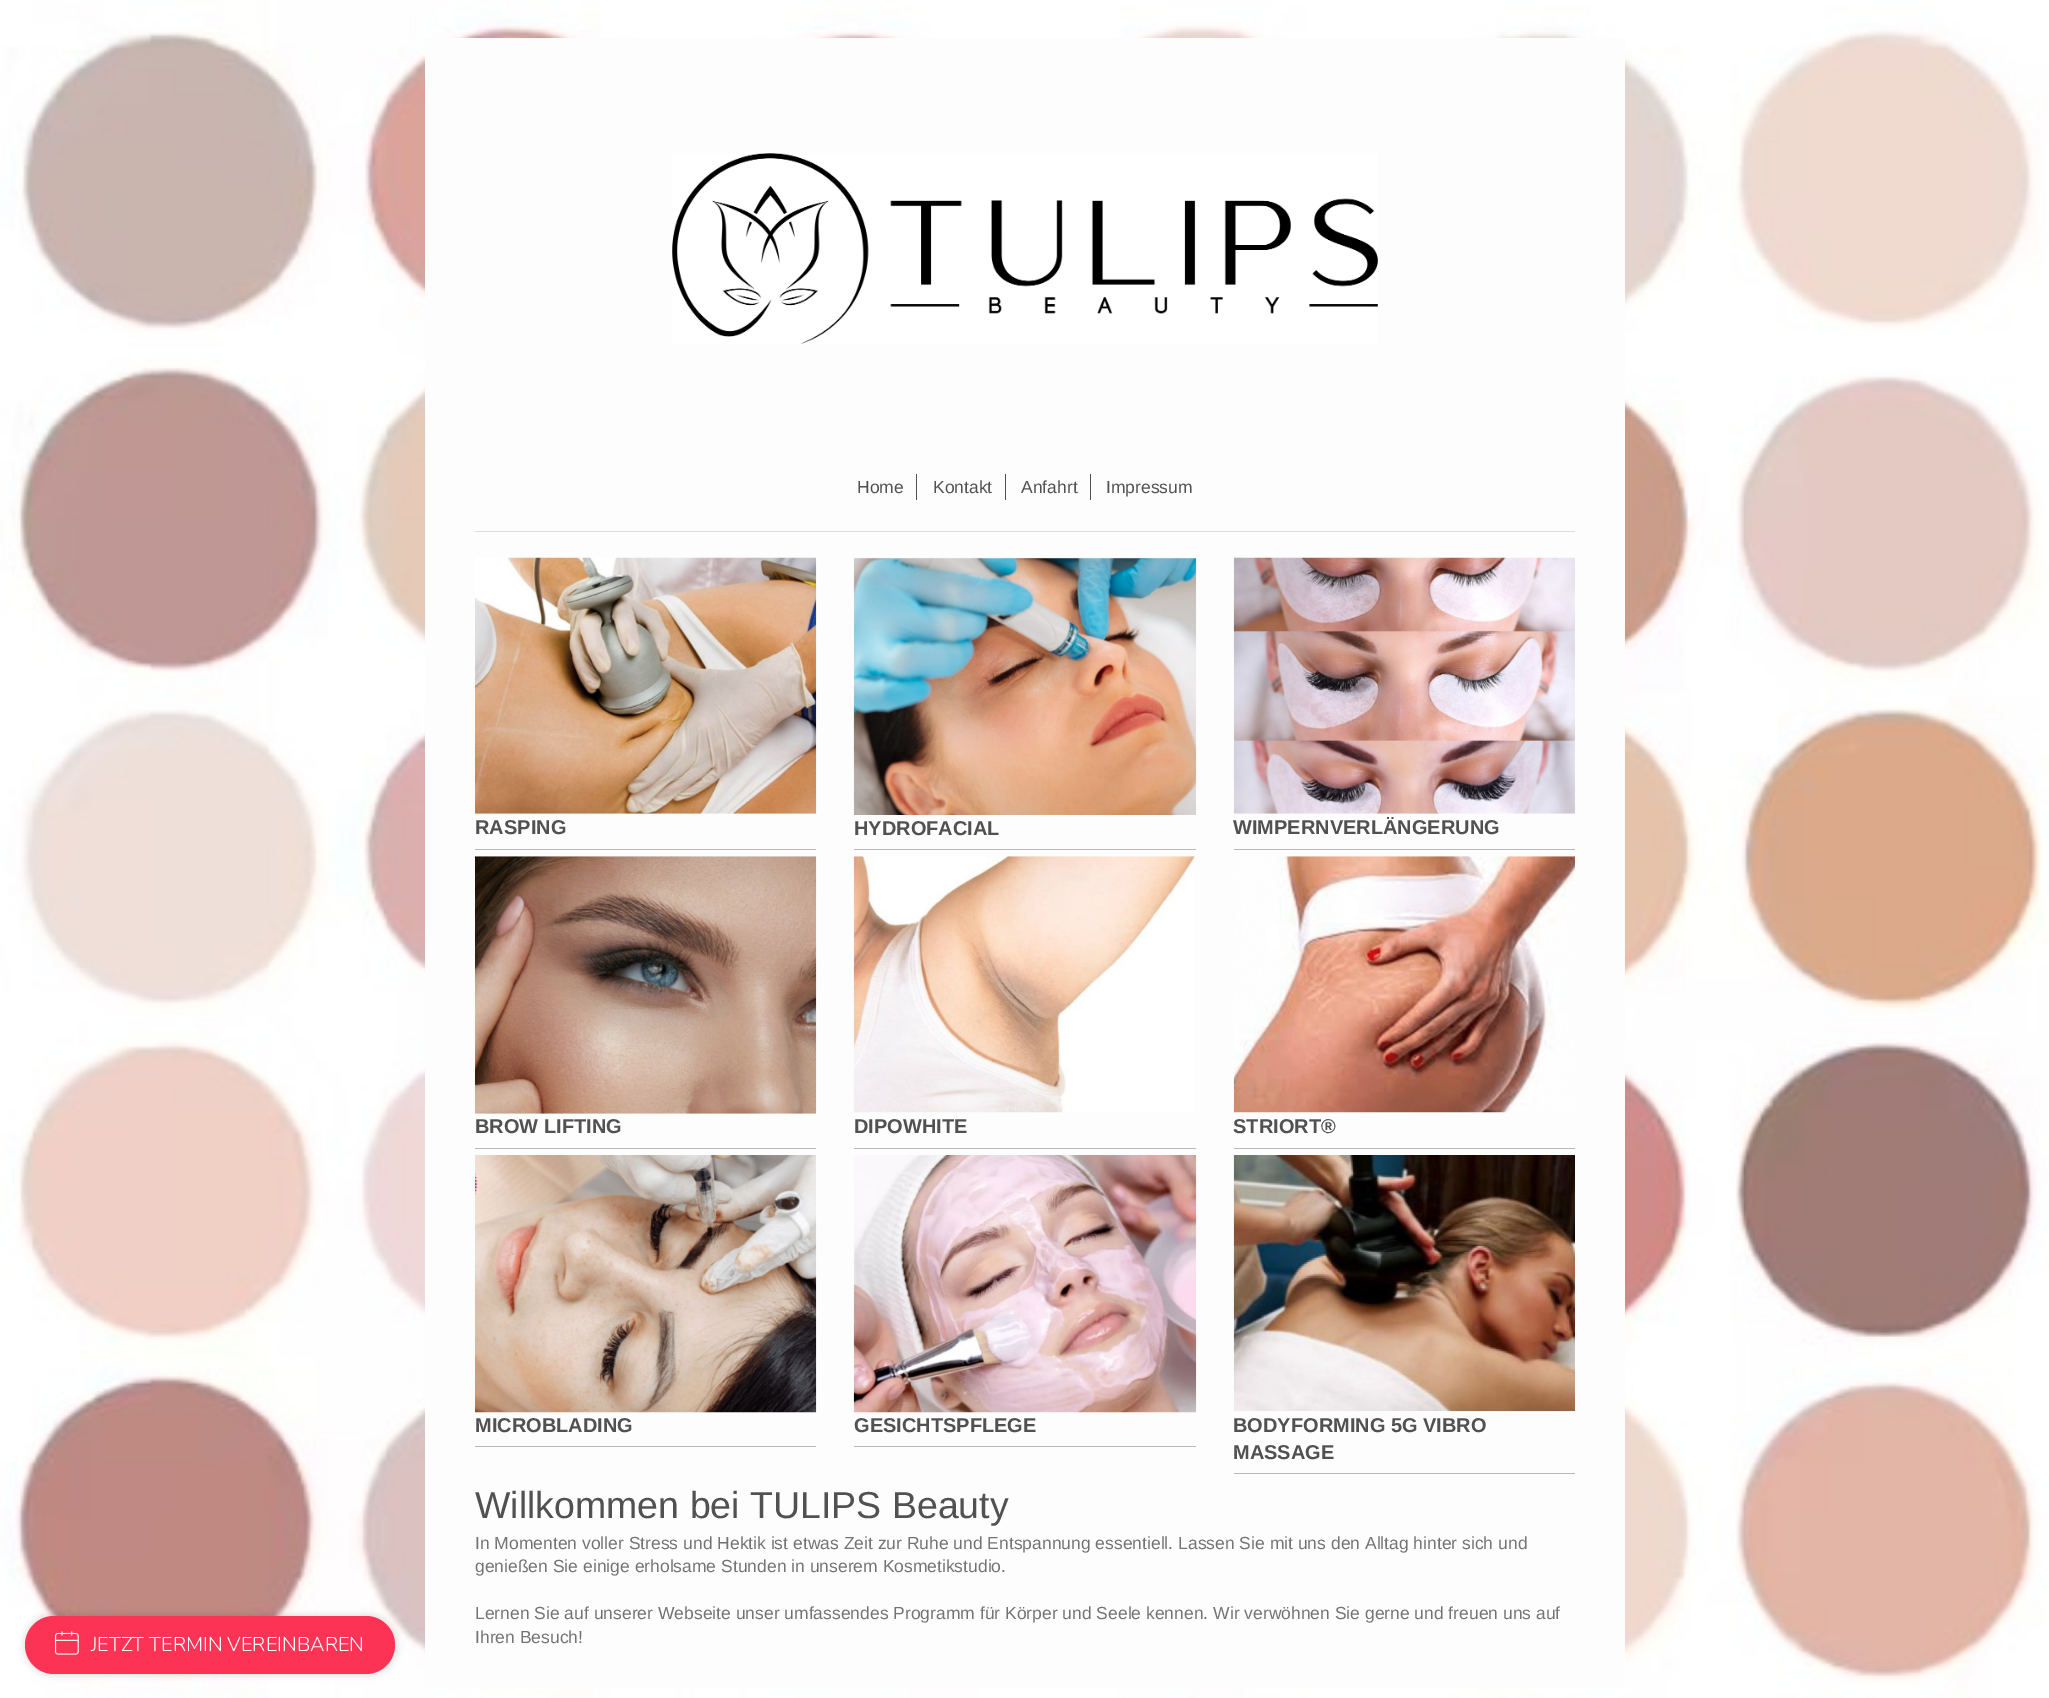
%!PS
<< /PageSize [2049 1698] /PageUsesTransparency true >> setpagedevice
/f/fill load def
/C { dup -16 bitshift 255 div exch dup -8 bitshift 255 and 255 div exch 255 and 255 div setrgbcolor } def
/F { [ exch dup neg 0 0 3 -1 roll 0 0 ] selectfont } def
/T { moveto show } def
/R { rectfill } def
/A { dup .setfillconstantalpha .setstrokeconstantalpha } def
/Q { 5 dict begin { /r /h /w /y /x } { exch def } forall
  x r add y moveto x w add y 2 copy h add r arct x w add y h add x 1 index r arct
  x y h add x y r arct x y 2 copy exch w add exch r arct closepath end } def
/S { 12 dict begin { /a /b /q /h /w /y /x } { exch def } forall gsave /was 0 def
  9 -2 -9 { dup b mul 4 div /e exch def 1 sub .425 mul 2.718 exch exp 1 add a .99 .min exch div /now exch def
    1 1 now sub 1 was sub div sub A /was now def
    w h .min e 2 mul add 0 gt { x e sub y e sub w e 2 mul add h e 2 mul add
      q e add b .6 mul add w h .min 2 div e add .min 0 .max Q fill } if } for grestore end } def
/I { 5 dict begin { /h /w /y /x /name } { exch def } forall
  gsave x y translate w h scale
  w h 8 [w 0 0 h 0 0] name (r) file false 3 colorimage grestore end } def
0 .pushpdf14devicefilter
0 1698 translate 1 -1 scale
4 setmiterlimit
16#FFFFFF C
0 0 2049 1698 R
(1.rgb) 0 0 2049 1698 I
16#000000 C
23 1614 375 62 31 3 .1 S
16#FD3356 C
25 1616 370 58 29 Q f
(2.rgb) 55 1631 24 24 I
/Nunito-Light 20 F
16#FFFFFF C
(JETZT TERMIN VEREINBAREN) 91 1651 T
16#FDFDFD C
425 38 1200 1650 R
(3.rgb) 672 153 706 191 I
16#DBDBDB C
475 531 1100 1 R
16#515151 C
916 474 1 26 R
/LiberationSans-Regular 17.5 F
(Home) 857 493 T
1005 474 1 26 R
(Kontakt) 933 493 T
1090 474 1 26 R
(Anfahrt) 1021 493 T
(Impressum) 1106 493 T
(4.rgb) 475 557 342 257 I
/LiberationSans-Bold 20 F
(RASPING) 475 834 T
16#B8B8B8 C
475 849 341 1 R
(5.rgb) 853 557 344 258 I
16#515151 C
(HYDROFACIAL) 854 835 T
16#B8B8B8 C
854 849 342 1 R
(6.rgb) 1233 557 342 257 I
16#515151 C
(WIMPERNVERLÄNGERUNG) 1233 834 T
16#B8B8B8 C
1234 849 341 1 R
(7.rgb) 475 856 342 258 I
16#515151 C
(BROW LIFTING) 475 1133 T
16#B8B8B8 C
475 1148 341 1 R
(8.rgb) 853 856 342 257 I
16#515151 C
(DIPOWHITE) 854 1133 T
16#B8B8B8 C
854 1148 342 1 R
(9.rgb) 1233 856 342 257 I
16#515151 C
(STRIORT®) 1233 1133 T
16#B8B8B8 C
1234 1148 341 1 R
(10.rgb) 475 1155 342 258 I
16#515151 C
(MICROBLADING) 475 1432 T
16#B8B8B8 C
475 1446 341 1 R
(11.rgb) 853 1155 344 258 I
16#515151 C
(GESICHTSPFLEGE) 854 1432 T
16#B8B8B8 C
854 1446 342 1 R
(12.rgb) 1233 1155 342 257 I
16#515151 C
(BODYFORMING 5G VIBRO) 1233 1432 T
(MASSAGE) 1233 1459 T
16#B8B8B8 C
1234 1473 341 1 R
/LiberationSans-Regular 37.5 F
16#515151 C
(Willkommen bei TULIPS Beauty) 475 1518 T
/LiberationSans-Regular 17.5 F
16#737373 C
(In Momenten voller Stress und Hektik ist etwas Zeit zur Ruhe und Entspannung essentiell. Lassen Sie mit uns den Alltag hinter sich und) 475 1549 T
(genießen Sie einige erholsame Stunden in unserem Kosmetikstudio.) 475 1572 T
(Lernen Sie auf unserer Webseite unser umfassendes Programm für Körper und Seele kennen. Wir verwöhnen Sie gerne und freuen uns auf) 475 1619 T
(Ihren Besuch!) 475 1643 T
.poppdf14devicefilter showpage
